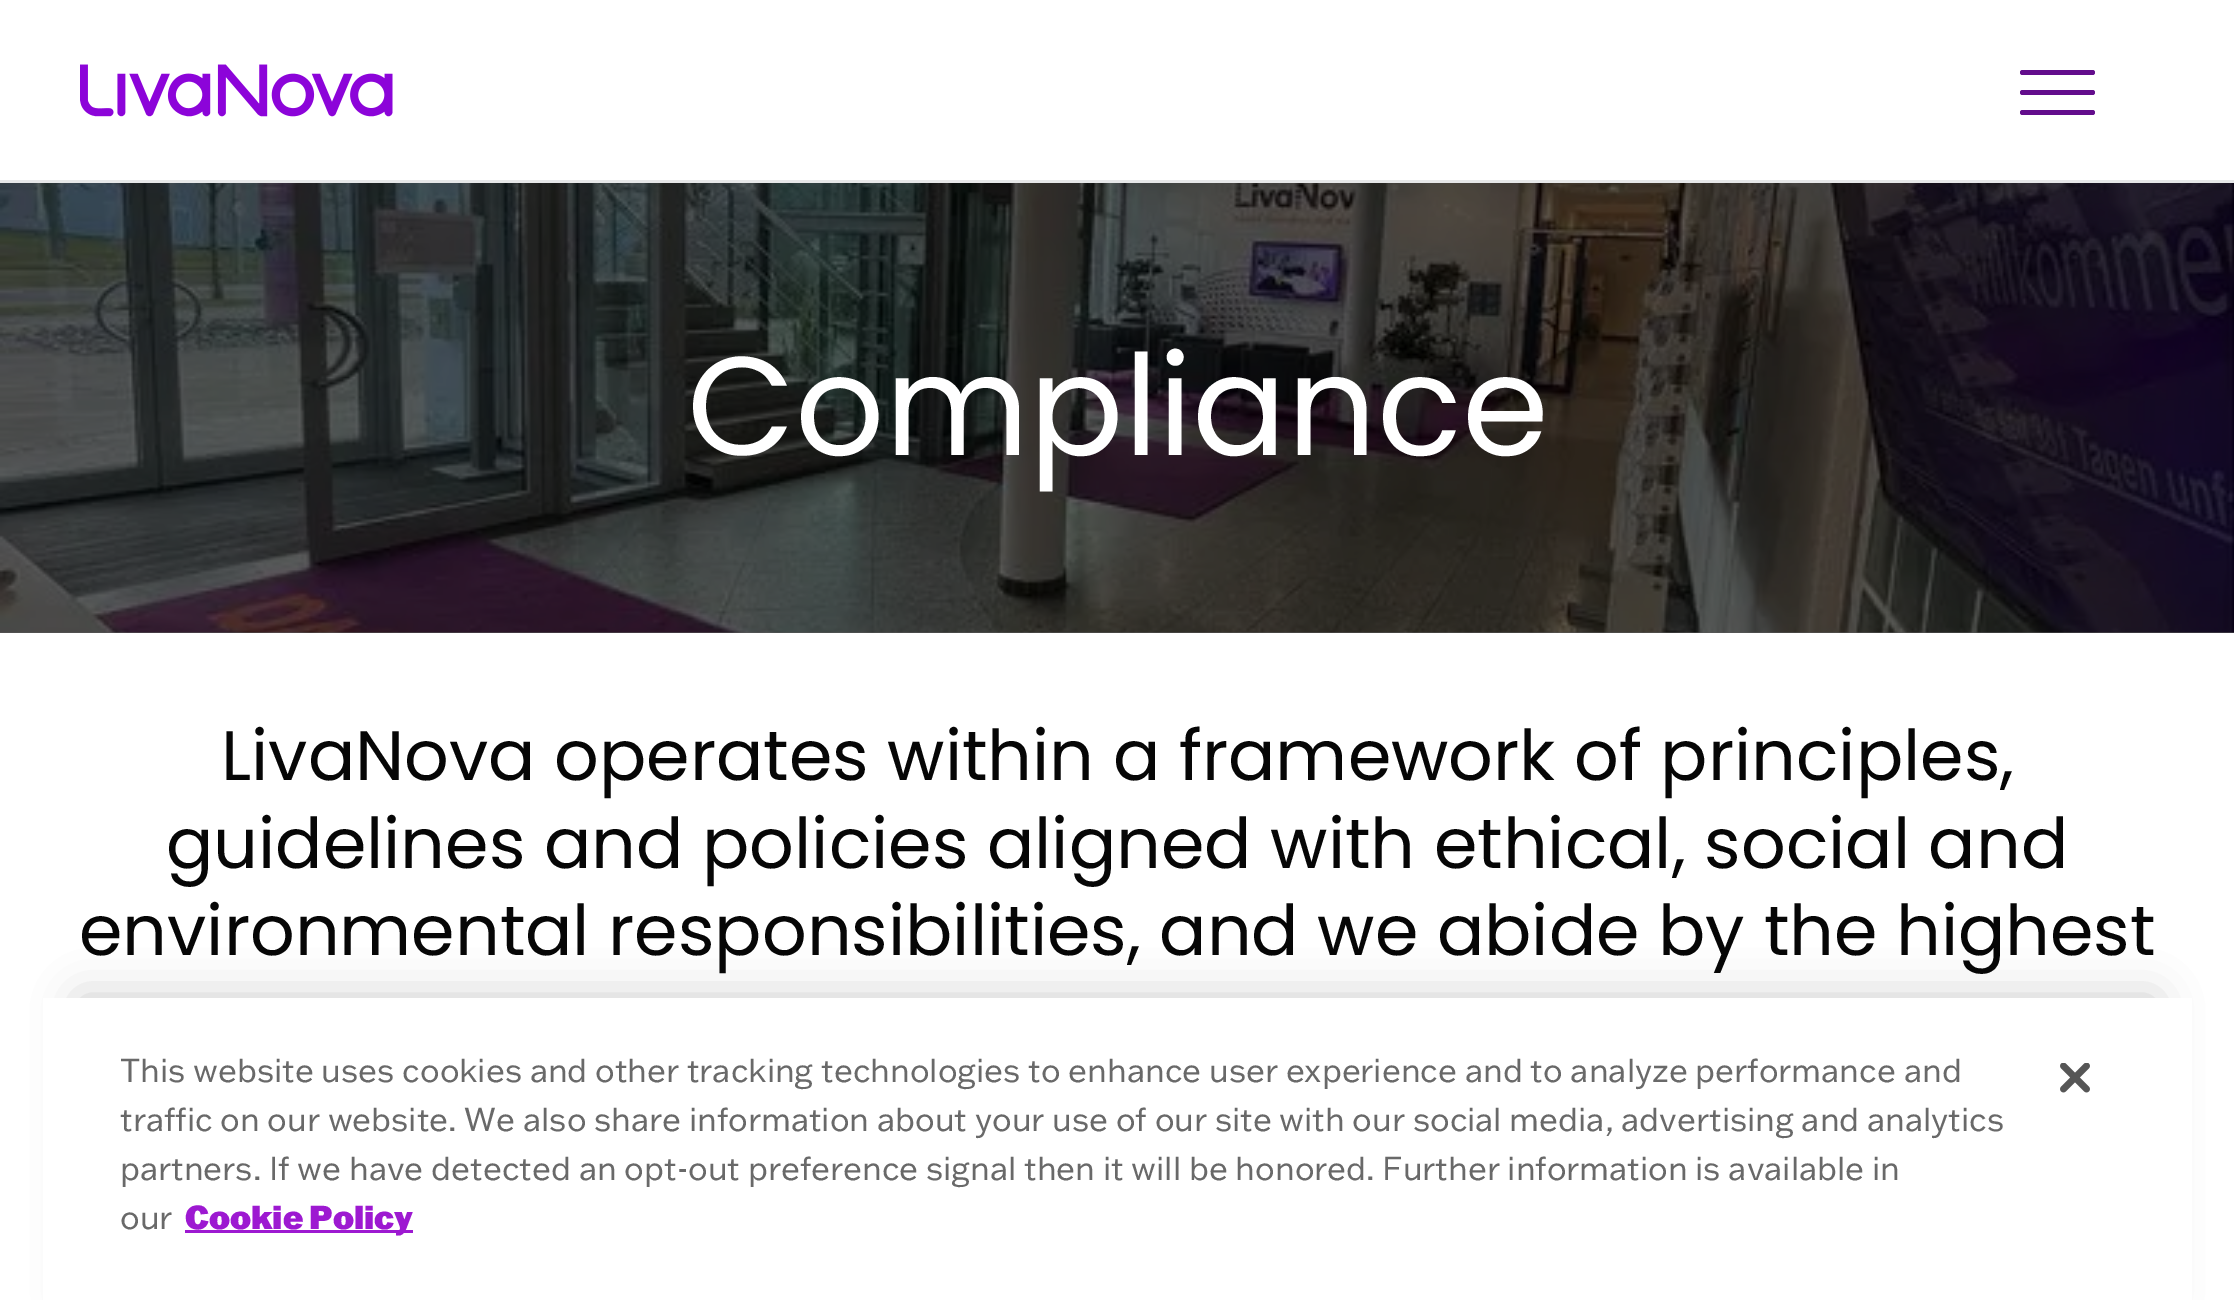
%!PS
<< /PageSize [2234 1300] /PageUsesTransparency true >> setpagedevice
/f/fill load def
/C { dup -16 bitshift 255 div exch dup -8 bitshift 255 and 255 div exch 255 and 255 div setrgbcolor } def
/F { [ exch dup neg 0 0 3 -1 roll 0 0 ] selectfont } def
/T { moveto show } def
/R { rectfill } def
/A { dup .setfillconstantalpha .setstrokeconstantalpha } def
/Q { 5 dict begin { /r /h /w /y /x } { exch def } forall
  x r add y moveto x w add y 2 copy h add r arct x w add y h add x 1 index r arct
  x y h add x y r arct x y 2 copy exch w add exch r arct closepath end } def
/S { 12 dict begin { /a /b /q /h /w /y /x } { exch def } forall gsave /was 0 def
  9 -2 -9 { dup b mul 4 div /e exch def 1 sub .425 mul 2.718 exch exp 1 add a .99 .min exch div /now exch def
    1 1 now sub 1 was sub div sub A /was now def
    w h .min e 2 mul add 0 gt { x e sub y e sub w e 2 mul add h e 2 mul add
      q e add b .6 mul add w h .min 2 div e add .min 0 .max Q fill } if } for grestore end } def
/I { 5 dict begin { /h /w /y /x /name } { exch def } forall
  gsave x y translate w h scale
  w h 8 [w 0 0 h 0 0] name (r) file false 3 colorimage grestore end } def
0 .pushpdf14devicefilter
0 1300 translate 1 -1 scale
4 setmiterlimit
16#FFFFFF C
0 0 2234 1300 R
16#595959 C
0 632 2234 1 R
(1.rgb) 80 64 313 53 I
16#630D8C C
2020 90 75 5 2.5 Q f
2020 70 75 5 2.5 Q f
2020 110 75 5 2.5 Q f
16#E6E7E8 C
0 180 2234 3 R
(2.rgb) 0 183 2234 450 I
/Poppins-Regular 140 F
16#FFFFFF C
(Compliance) 687 455 T
/Poppins-Regular 70 F
16#060606 C
(LivaNova operates within a framework of principles,) 221 780 T
(guidelines and policies aligned with ethical, social and) 166 868 T
(environmental responsibilities, and we abide by the highest) 79 955 T
16#000000 C
80 998 2075 302 0 22.5 .2 S
16#FFFFFF C
43 998 2149 302 R
/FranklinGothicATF-Regular 32.52 F
16#696969 C
(This website uses cookies and other tracking technologies to enhance user experience and to analyze performance and) 120 1082 T
(traffic on our website. We also share information about your use of our site with our social media, advertising and analytics) 120 1131 T
(partners. If we have detected an opt-out preference signal then it will be honored. Further information is available in) 120 1180 T
(our) 120 1229 T
16#9D19D1 C
185 1230 228 3 R
/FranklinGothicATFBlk-Black 32.52 F
(Cookie Policy) 185 1229 T
(3.rgb) 2060 1063 30 30 I
.poppdf14devicefilter showpage
